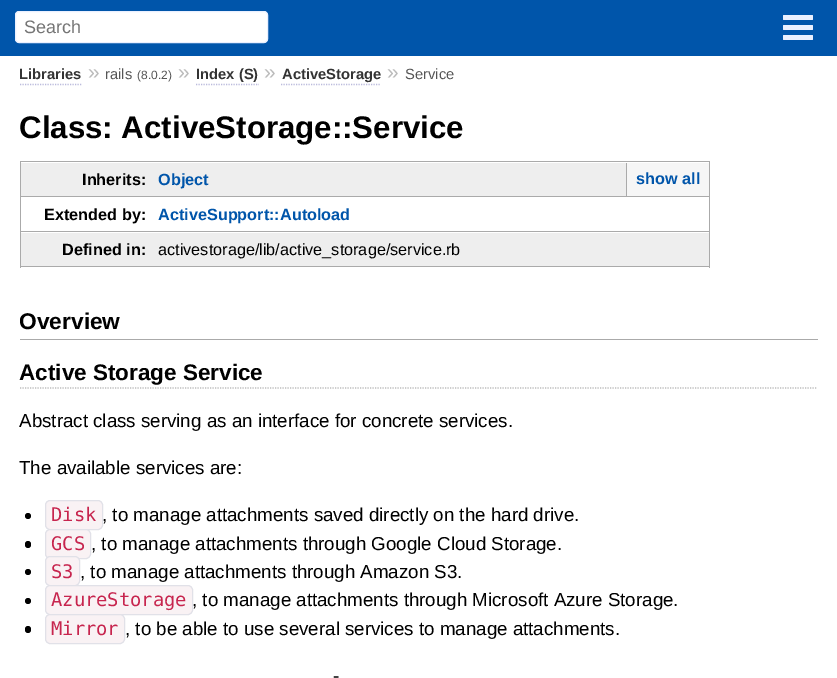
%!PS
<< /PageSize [837 678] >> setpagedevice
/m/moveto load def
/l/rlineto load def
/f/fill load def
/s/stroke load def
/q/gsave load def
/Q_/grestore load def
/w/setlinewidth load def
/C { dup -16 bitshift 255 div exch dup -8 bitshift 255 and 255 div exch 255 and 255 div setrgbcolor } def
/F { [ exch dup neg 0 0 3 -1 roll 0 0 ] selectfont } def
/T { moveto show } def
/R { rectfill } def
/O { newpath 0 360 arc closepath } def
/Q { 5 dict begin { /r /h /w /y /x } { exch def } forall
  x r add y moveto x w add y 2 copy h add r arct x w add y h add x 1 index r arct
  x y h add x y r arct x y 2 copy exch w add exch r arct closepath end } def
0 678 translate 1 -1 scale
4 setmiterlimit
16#FFFFFF C
0 0 837 678 R
16#0055AA C
0 0 837 56 R
16#FFFFFF C
15.5 11.5 252 31 3.5 Q q f Q_
16#EAF0FF C
s
/LiberationSans-Regular 18 F
16#757575 C
(Search) 24 33 T
16#EAF0FF C
783 15 30 5 1 Q f
783 25 30 5 1 Q f
783 35 30 5 1 Q f
/LiberationSans-Bold 14.75 F
16#333333 C
(Libraries) 19 79 T
16#BBBBDD C
1.2 w
[1.25 1.25] 0 setdash
20 84.5 m 62.5 0 l s
/LiberationSans-Regular 21 F
16#BBBBBB C
(») 88 79 T
/LiberationSans-Regular 14.75 F
16#555555 C
(rails) 105 79 T
/LiberationSans-Regular 12 F
(\(8.0.2\)) 137 79 T
/LiberationSans-Regular 21 F
16#BBBBBB C
(») 178 79 T
/LiberationSans-Bold 14.75 F
16#333333 C
(Index \(S\)) 196 79 T
16#BBBBDD C
196 84.5 m 63 0 l s
/LiberationSans-Regular 21 F
16#BBBBBB C
(») 264 79 T
/LiberationSans-Bold 14.75 F
16#333333 C
(ActiveStorage) 282 79 T
16#BBBBDD C
281 84.5 m 100 0 l s
/LiberationSans-Regular 21 F
16#BBBBBB C
(») 387 79 T
/LiberationSans-Regular 14.75 F
16#555555 C
(Service) 405 79 T
/LiberationSans-Bold 31.25 F
16#000000 C
(Class: ActiveStorage::Service) 19 138 T
16#EEEEEE C
21 163 605 33 R
16#AAAAAA C
20 161 690 1 R
20 161 1 35 R
/LiberationSans-Bold 16.25 F
16#000000 C
(Inherits:) 82 185 T
16#AAAAAA C
20 196 690 1 R
20 231 690 1 R
709 161 1 107 R
16#0055AA C
(Object) 158 185 T
16#F6F6F6 C
627 163 82 33 R
16#AAAAAA C
626 163 1 33 R
16#0055AA C
(show all) 636 184 T
16#AAAAAA C
20 196 1 35 R
16#000000 C
(Extended by:) 44 220 T
16#0055AA C
(ActiveSupport::Autoload) 158 220 T
16#EEEEEE C
21 233 688 33 R
16#AAAAAA C
20 266 139 1 R
20 231 1 37 R
16#000000 C
(Defined in:) 62 255 T
16#AAAAAA C
159 266 551 1 R
/LiberationSans-Regular 16.25 F
16#000000 C
(activestorage/lib/active_storage/service.rb) 158 255 T
16#AAAAAA C
20 339 798 1 R
/LiberationSans-Bold 22.75 F
16#000000 C
(Overview) 19 329 T
16#BBBBBB C
20 388 m 797.5 0 l s
/LiberationSans-Bold 22.5 F
16#000000 C
(Active Storage Service) 19 380 T
/LiberationSans-Regular 18.75 F
(Abstract class serving as an interface for concrete services.) 19 427 T
(The available services are:) 19 474 T
28 516 3 O f
16#F9F2F4 C
45.5 500.5 57 29 4.5 Q q f Q_
16#E1E1E8 C
1 w
[] 0 setdash
s
/DejaVuSansMono-Regular 18.75 F
16#C7254E C
(Disk) 51 521 T
/LiberationSans-Regular 18.75 F
16#000000 C
(, to manage attachments saved directly on the hard drive.) 102 521 T
25 541 6 7 3 Q f
16#F9F2F4 C
45.5 529.5 45 29 4.5 Q q f Q_
16#E1E1E8 C
s
/DejaVuSansMono-Regular 18.75 F
16#C7254E C
(GCS) 51 550 T
/LiberationSans-Regular 18.75 F
16#000000 C
(, to manage attachments through Google Cloud Storage.) 91 550 T
28 572 3 O f
16#F9F2F4 C
45.5 556.5 34 29 4.5 Q q f Q_
16#E1E1E8 C
s
/DejaVuSansMono-Regular 18.75 F
16#C7254E C
(S3) 51 578 T
/LiberationSans-Regular 18.75 F
16#000000 C
(, to manage attachments through Amazon S3.) 80 578 T
28 601 3 O f
16#F9F2F4 C
45.5 585.5 147 29 4.5 Q q f Q_
16#E1E1E8 C
s
/DejaVuSansMono-Regular 18.75 F
16#C7254E C
(AzureStorage) 51 606 T
/LiberationSans-Regular 18.75 F
16#000000 C
(, to manage attachments through Microsoft Azure Storage.) 192 606 T
25 626 6 7 3 Q f
16#F9F2F4 C
45.5 614.5 79 29 4.5 Q q f Q_
16#E1E1E8 C
s
/DejaVuSansMono-Regular 18.75 F
16#C7254E C
(Mirror) 51 635 T
/LiberationSans-Regular 18.75 F
16#000000 C
(, to be able to use several services to manage attachments.) 125 635 T
(-) 333 682 T
showpage
